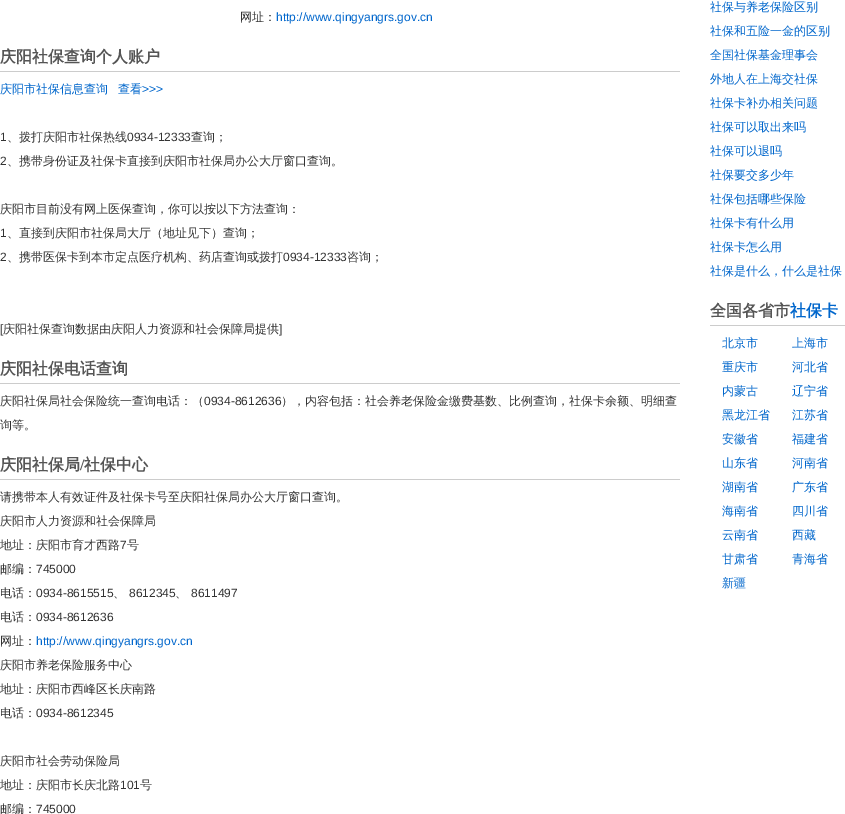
%!PS
<< /PageSize [845 814] >> setpagedevice
/C { dup -16 bitshift 255 div exch dup -8 bitshift 255 and 255 div exch 255 and 255 div setrgbcolor } def
/F { [ exch dup neg 0 0 3 -1 roll 0 0 ] selectfont } def
/T { moveto show } def
/R { rectfill } def
0 814 translate 1 -1 scale
4 setmiterlimit
16#FFFFFF C
0 0 845 814 R
/WenQuanYiZenHei-Medium 12 F
16#333333 C
(网址：) 240 21 T
/LiberationSans-Regular 12 F
16#0066CC C
(http://www.qingyangrs.gov.cn) 276 21 T
16#CCCCCC C
0 71 680 1 R
/WenQuanYiZenHei-Bold 16 F
16#555555 C
(庆阳社保查询个人账户) 0 62 T
/WenQuanYiZenHei-Medium 12 F
16#0066CC C
(庆阳市社保信息查询) 0 93 T
(查看) 118 93 T
/LiberationSans-Regular 12 F
(>>>) 142 93 T
16#333333 C
(1) 0 141 T
/WenQuanYiZenHei-Medium 12 F
(、拨打庆阳市社保热线) 7 141 T
/LiberationSans-Regular 12 F
(0934-12333) 127 141 T
/WenQuanYiZenHei-Medium 12 F
(查询；) 191 141 T
/LiberationSans-Regular 12 F
(2) 0 165 T
/WenQuanYiZenHei-Medium 12 F
(、携带身份证及社保卡直接到庆阳市社保局办公大厅窗口查询。) 7 165 T
(庆阳市目前没有网上医保查询，你可以按以下方法查询：) 0 213 T
/LiberationSans-Regular 12 F
(1) 0 237 T
/WenQuanYiZenHei-Medium 12 F
(、直接到庆阳市社保局大厅（地址见下）查询；) 7 237 T
/LiberationSans-Regular 12 F
(2) 0 261 T
/WenQuanYiZenHei-Medium 12 F
(、携带医保卡到本市定点医疗机构、药店查询或拨打) 7 261 T
/LiberationSans-Regular 12 F
(0934-12333) 283 261 T
/WenQuanYiZenHei-Medium 12 F
(咨询；) 347 261 T
/LiberationSans-Regular 12 F
([) 0 333 T
/WenQuanYiZenHei-Medium 12 F
(庆阳社保查询数据由庆阳人力资源和社会保障局提供) 3 333 T
/LiberationSans-Regular 12 F
(]) 279 333 T
16#CCCCCC C
0 383 680 1 R
/WenQuanYiZenHei-Bold 16 F
16#555555 C
(庆阳社保电话查询) 0 374 T
/WenQuanYiZenHei-Medium 12 F
16#333333 C
(庆阳社保局社会保险统一查询电话：（) 0 405 T
/LiberationSans-Regular 12 F
(0934-8612636) 204 405 T
/WenQuanYiZenHei-Medium 12 F
(），内容包括：社会养老保险金缴费基数、比例查询，社保卡余额、明细查) 281 405 T
(询等。) 0 429 T
16#CCCCCC C
0 479 680 1 R
/WenQuanYiZenHei-Bold 16 F
16#555555 C
(庆阳社保局) 0 470 T
/LiberationSerif-Bold 16 F
(/) 80 470 T
/WenQuanYiZenHei-Bold 16 F
(社保中心) 84 470 T
/WenQuanYiZenHei-Medium 12 F
16#333333 C
(请携带本人有效证件及社保卡号至庆阳社保局办公大厅窗口查询。) 0 501 T
(庆阳市人力资源和社会保障局) 0 525 T
(地址：庆阳市育才西路) 0 549 T
/LiberationSans-Regular 12 F
(7) 120 549 T
/WenQuanYiZenHei-Medium 12 F
(号) 127 549 T
(邮编：) 0 573 T
/LiberationSans-Regular 12 F
(745000) 36 573 T
/WenQuanYiZenHei-Medium 12 F
(电话：) 0 597 T
/LiberationSans-Regular 12 F
(0934-8615515) 36 597 T
/WenQuanYiZenHei-Medium 12 F
(、) 113 597 T
/LiberationSans-Regular 12 F
(8612345) 129 597 T
/WenQuanYiZenHei-Medium 12 F
(、) 175 597 T
/LiberationSans-Regular 12 F
(8611497) 191 597 T
/WenQuanYiZenHei-Medium 12 F
(电话：) 0 621 T
/LiberationSans-Regular 12 F
(0934-8612636) 36 621 T
/WenQuanYiZenHei-Medium 12 F
(网址：) 0 645 T
/LiberationSans-Regular 12 F
16#0066CC C
(http://www.qingyangrs.gov.cn) 36 645 T
/WenQuanYiZenHei-Medium 12 F
16#333333 C
(庆阳市养老保险服务中心) 0 669 T
(地址：庆阳市西峰区长庆南路) 0 693 T
(电话：) 0 717 T
/LiberationSans-Regular 12 F
(0934-8612345) 36 717 T
/WenQuanYiZenHei-Medium 12 F
(庆阳市社会劳动保险局) 0 765 T
(地址：庆阳市长庆北路) 0 789 T
/LiberationSans-Regular 12 F
(101) 120 789 T
/WenQuanYiZenHei-Medium 12 F
(号) 140 789 T
(邮编：) 0 813 T
/LiberationSans-Regular 12 F
(745000) 36 813 T
/WenQuanYiZenHei-Medium 12 F
16#0066CC C
(社保与养老保险区别) 710 11 T
(社保和五险一金的区别) 710 35 T
(全国社保基金理事会) 710 59 T
(外地人在上海交社保) 710 83 T
(社保卡补办相关问题) 710 107 T
(社保可以取出来吗) 710 131 T
(社保可以退吗) 710 155 T
(社保要交多少年) 710 179 T
(社保包括哪些保险) 710 203 T
(社保卡有什么用) 710 227 T
(社保卡怎么用) 710 251 T
(社保是什么，什么是社保) 710 275 T
16#CCCCCC C
710 325 135 1 R
/WenQuanYiZenHei-Bold 16 F
16#555555 C
(全国各省市) 710 316 T
16#0066CC C
(社保卡) 790 316 T
/WenQuanYiZenHei-Medium 12 F
(北京市) 722 347 T
(上海市) 792 347 T
(重庆市) 722 371 T
(河北省) 792 371 T
(内蒙古) 722 395 T
(辽宁省) 792 395 T
(黑龙江省) 722 419 T
(江苏省) 792 419 T
(安徽省) 722 443 T
(福建省) 792 443 T
(山东省) 722 467 T
(河南省) 792 467 T
(湖南省) 722 491 T
(广东省) 792 491 T
(海南省) 722 515 T
(四川省) 792 515 T
(云南省) 722 539 T
(西藏) 792 539 T
(甘肃省) 722 563 T
(青海省) 792 563 T
(新疆) 722 587 T
showpage
